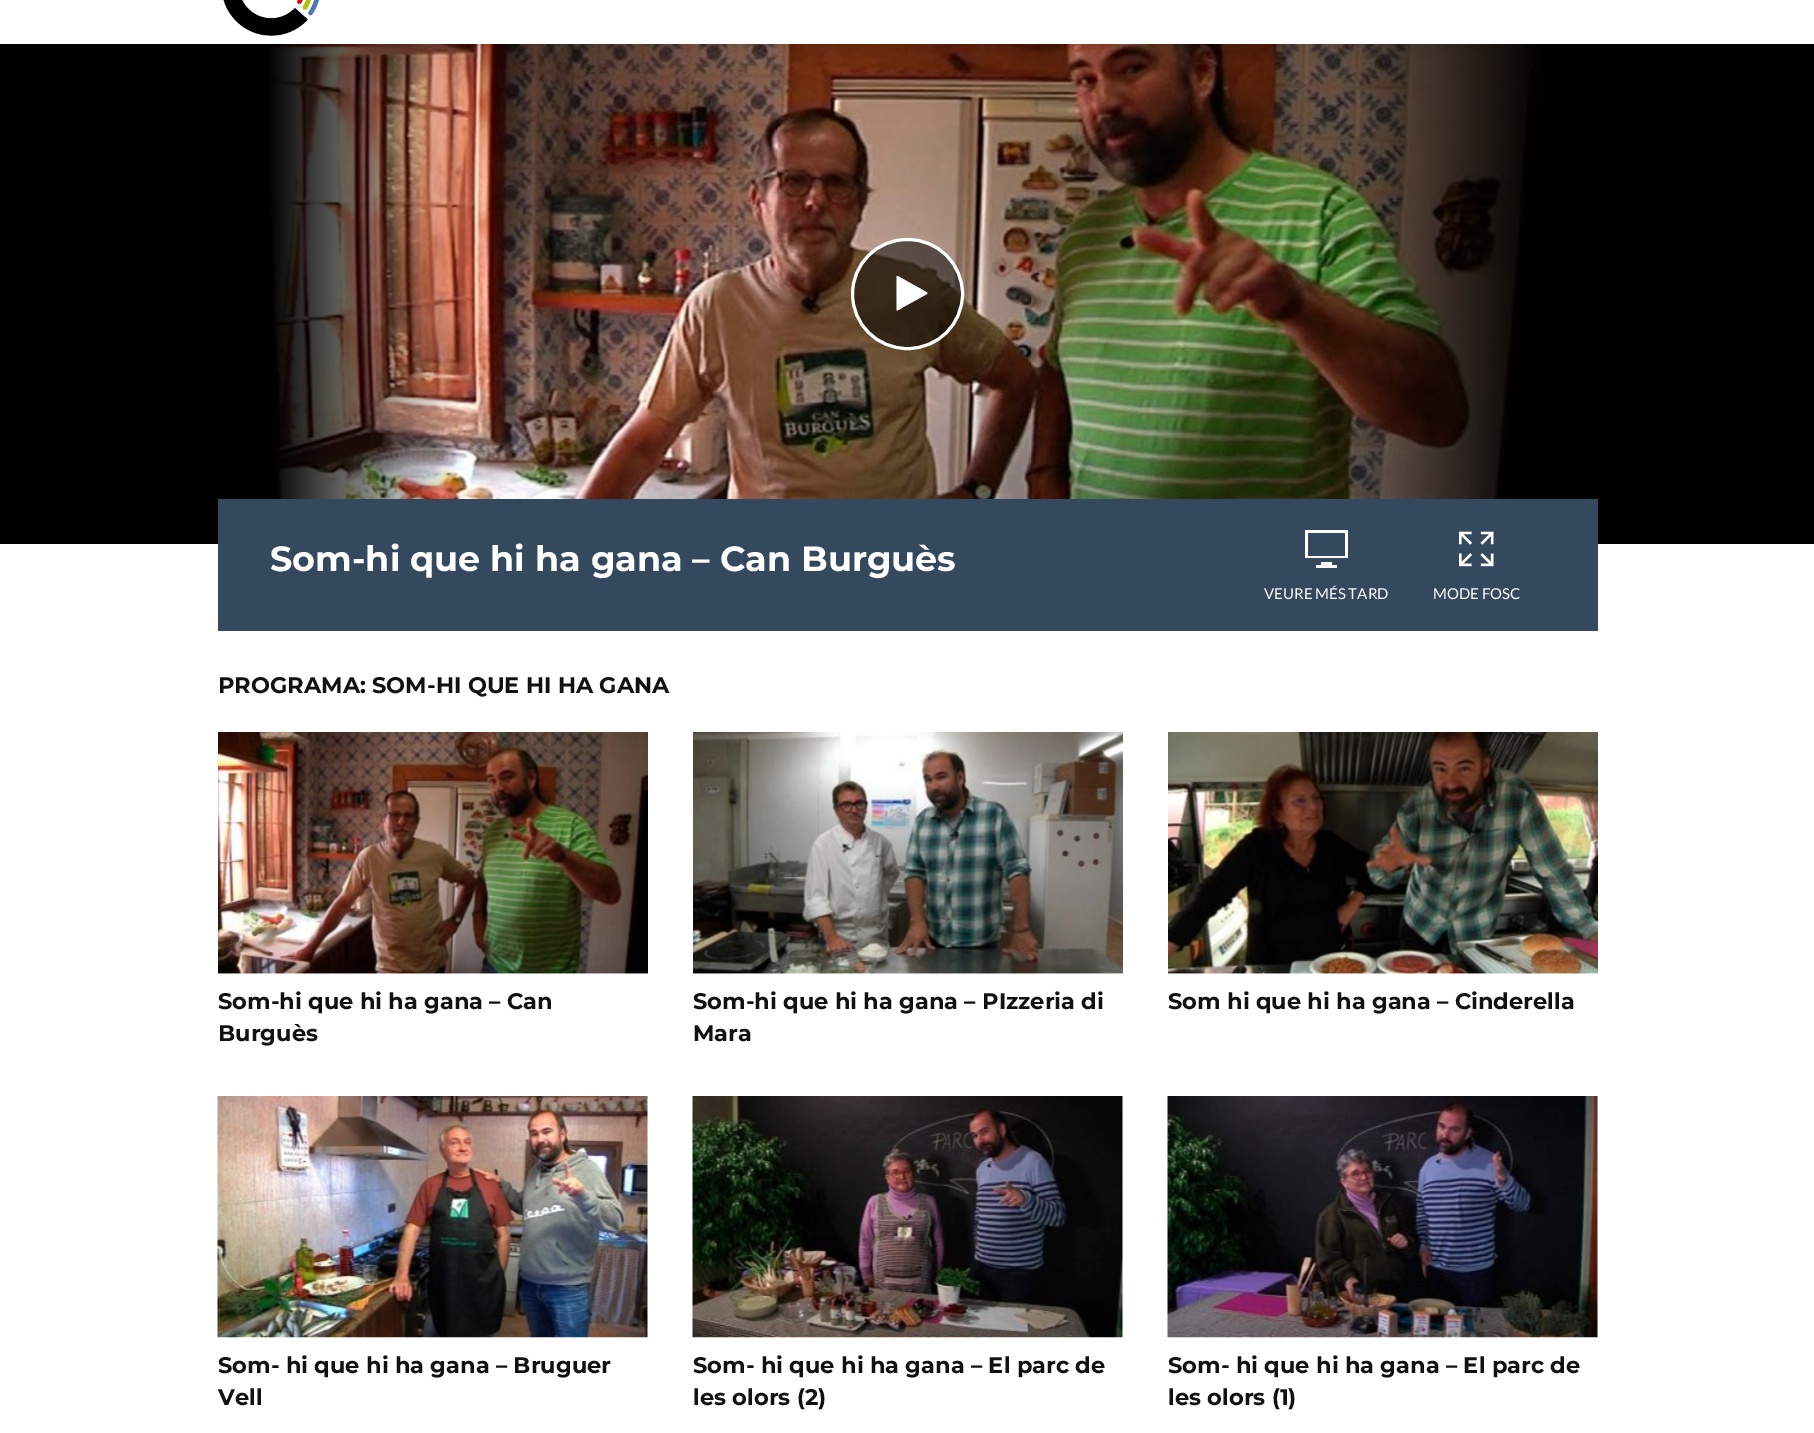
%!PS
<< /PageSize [1814 1433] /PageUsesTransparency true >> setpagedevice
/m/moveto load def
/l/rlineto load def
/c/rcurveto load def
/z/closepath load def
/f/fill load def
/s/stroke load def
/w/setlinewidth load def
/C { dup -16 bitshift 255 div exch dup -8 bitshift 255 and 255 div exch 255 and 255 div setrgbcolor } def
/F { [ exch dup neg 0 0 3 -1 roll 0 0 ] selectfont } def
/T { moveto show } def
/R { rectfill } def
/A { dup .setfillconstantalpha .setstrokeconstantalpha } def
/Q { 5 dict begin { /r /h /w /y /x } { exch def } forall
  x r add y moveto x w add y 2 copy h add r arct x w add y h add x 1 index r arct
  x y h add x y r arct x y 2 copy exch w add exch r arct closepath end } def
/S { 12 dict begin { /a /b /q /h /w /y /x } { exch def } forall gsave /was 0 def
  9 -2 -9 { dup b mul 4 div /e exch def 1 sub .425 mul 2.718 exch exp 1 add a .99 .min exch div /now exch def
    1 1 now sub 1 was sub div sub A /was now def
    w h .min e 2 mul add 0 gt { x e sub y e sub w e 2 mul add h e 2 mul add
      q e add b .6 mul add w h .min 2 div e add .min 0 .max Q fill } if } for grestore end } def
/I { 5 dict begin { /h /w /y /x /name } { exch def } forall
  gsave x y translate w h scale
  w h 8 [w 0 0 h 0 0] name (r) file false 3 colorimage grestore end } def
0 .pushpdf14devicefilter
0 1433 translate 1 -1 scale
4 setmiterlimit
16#FFFFFF C
0 0 1814 1433 R
16#000000 C
0 44 1814 500 R
(2.rgb) 268 44 1280 455 I
0 -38 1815 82 0 12.5 .15 S
16#FFFFFF C
0 0 1814 44 R
(1.rgb) 223 0 97 36 I
0.5 A
16#000000 C
852.5 239.5 110 109 54.5 Q f
1 A
16#FFFFFF C
3 w
852.5 239.5 110 109 54.5 Q s
927 294 m -24.5 13.5 l -.5 .5 -5.5 4 -6 2.5 c 0 -33.5 l .5 -.5 l .5 -.5 18 10 20.5 11 c 9.5 5.5 l .5 .5 l z f
16#34495E C
218 499 1380 132 R
/Montserrat-Bold 35 F
16#FFFFFF C
(Som-hi que hi ha gana – Can Burguès) 270 571 T
1305 558 m 43 0 l 0 -28 l -43 0 l z 1308 533 m 37 0 l 0 23 l -37 0 l z 1321 562 m 0 3 l -5 0 l 0 3 l 21 0 l 0 -3 l -5 0 l 0 -3 l z f
/Lato-Regular 15 F
(VEURE MÉS TARD) 1264 599 T
(3.rgb) 1459 531 35 36 I
(MODE FOSC) 1433 599 T
/Montserrat-Bold 22.5 F
16#111111 C
(PROGRAMA: SOM-HI QUE HI HA GANA) 218 693 T
(4.rgb) 218 732 430 242 I
(Som-hi que hi ha gana – Can) 218 1009 T
(Burguès) 218 1041 T
(5.rgb) 693 732 430 242 I
(Som-hi que hi ha gana – PIzzeria di) 693 1009 T
(Mara) 693 1041 T
(6.rgb) 1168 732 430 242 I
(Som hi que hi ha gana – Cinderella) 1168 1009 T
(7.rgb) 217 1096 431 242 I
(Som- hi que hi ha gana – Bruguer) 218 1373 T
(Vell) 218 1405 T
(8.rgb) 692 1096 431 242 I
(Som- hi que hi ha gana – El parc de) 693 1373 T
(les olors \(2\)) 693 1405 T
(9.rgb) 1167 1096 431 242 I
(Som- hi que hi ha gana – El parc de) 1168 1373 T
(les olors \(1\)) 1168 1405 T
.poppdf14devicefilter showpage
